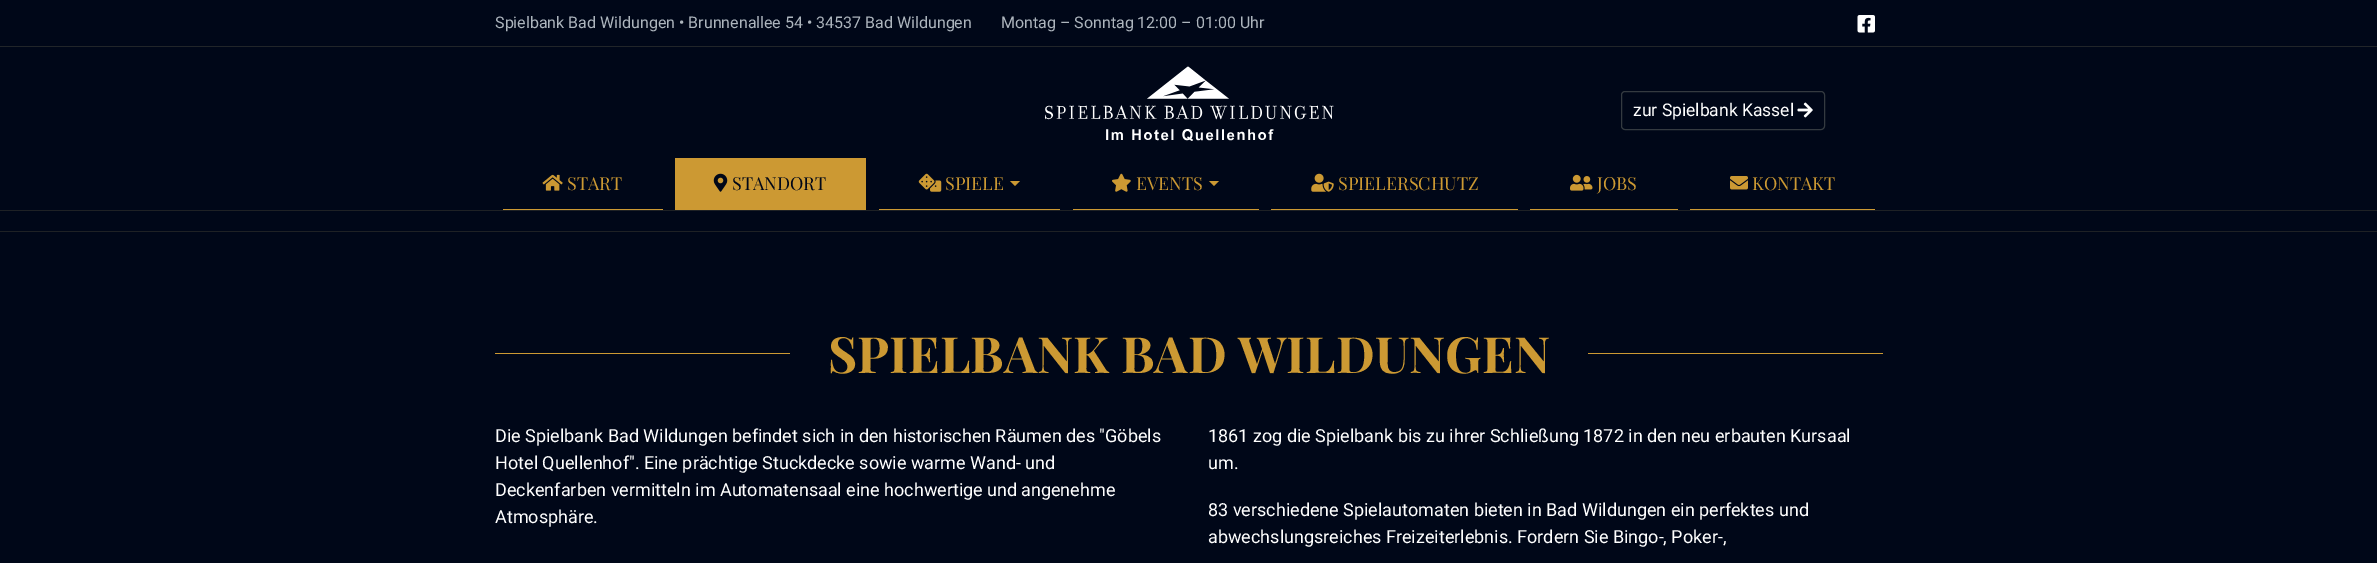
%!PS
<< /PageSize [2377 563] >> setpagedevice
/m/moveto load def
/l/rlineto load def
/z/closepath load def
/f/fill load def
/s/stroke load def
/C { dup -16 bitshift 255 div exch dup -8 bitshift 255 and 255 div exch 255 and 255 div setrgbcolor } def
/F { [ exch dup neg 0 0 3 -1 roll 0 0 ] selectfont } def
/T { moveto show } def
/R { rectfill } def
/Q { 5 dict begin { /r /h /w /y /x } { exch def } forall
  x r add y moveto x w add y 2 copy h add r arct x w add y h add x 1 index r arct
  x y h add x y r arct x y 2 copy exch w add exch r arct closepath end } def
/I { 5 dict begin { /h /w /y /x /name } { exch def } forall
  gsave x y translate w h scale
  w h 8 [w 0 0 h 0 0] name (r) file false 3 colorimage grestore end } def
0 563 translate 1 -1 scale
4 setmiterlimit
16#000718 C
0 0 2377 563 R
16#212529 C
0 46 2377 1 R
/Roboto-Regular 16 F
16#ADB5BD C
(Spielbank Bad Wildungen • Brunnenallee 54 • 34537 Bad Wildungen) 495 28 T
(Montag – Sonntag 12:00 – 01:00 Uhr) 1001 28 T
(1.rgb) 1857 15 18 18 I
(2.rgb) 1045 66 289 75 I
16#343A40 C
1621.5 91.5 203 38 3.5 Q s
/Roboto-Regular 17.5 F
16#FFFFFF C
(zur Spielbank Kassel) 1633 116 T
(3.rgb) 1797 102 16 16 I
16#CC9933 C
503 209 160 1 R
(4.rgb) 542 174 21 17 I
/PlayfairDisplay-Regular 18 F
(START) 567 190 T
675 158 191 52 R
(5.rgb) 713 173 15 19 I
16#000718 C
(STANDORT) 732 190 T
16#CC9933 C
879 209 181 1 R
(6.rgb) 918 173 24 19 I
(SPIELE) 945 190 T
1010 181 m 10 0 l -5 5 l z f
1073 209 186 1 R
(7.rgb) 1112 173 19 19 I
(EVENTS) 1136 190 T
1209 181 m 10 0 l -5 5 l z f
1271 209 247 1 R
(8.rgb) 1311 173 23 19 I
(SPIELERSCHUTZ) 1338 190 T
1530 209 148 1 R
(9.rgb) 1570 174 23 17 I
(JOBS) 1597 190 T
1690 209 185 1 R
(10.rgb) 1730 176 18 14 I
(KONTAKT) 1752 190 T
16#1E2125 C
0 210 2377 1 R
0 231 2377 1 R
16#CC9933 C
495 353 1388 1 R
16#000718 C
790 353 798 1 R
/PlayfairDisplay-Bold 50 F
16#CC9933 C
(SPIELBANK BAD WILDUNGEN) 828 373 T
/Roboto-Regular 18 F
16#FFFFFF C
(Die Spielbank Bad Wildungen befindet sich in den historischen Räumen des "Göbels) 495 442 T
(Hotel Quellenhof". Eine prächtige Stuckdecke sowie warme Wand- und) 495 469 T
(Deckenfarben vermitteln im Automatensaal eine hochwertige und) 495 496 T
(angenehme) 1021 496 T
(Atmosphäre.) 495 523 T
(1861 zog die Spielbank bis zu ihrer Schließung 1872 in den neu erbauten Kursaal) 1208 442 T
(um.) 1208 469 T
(83 verschiedene Spielautomaten bieten in Bad Wildungen ein perfektes und) 1208 516 T
(abwechslungsreiches Freizeiterlebnis. Fordern Sie Bingo-, Poker-,) 1208 543 T
showpage
